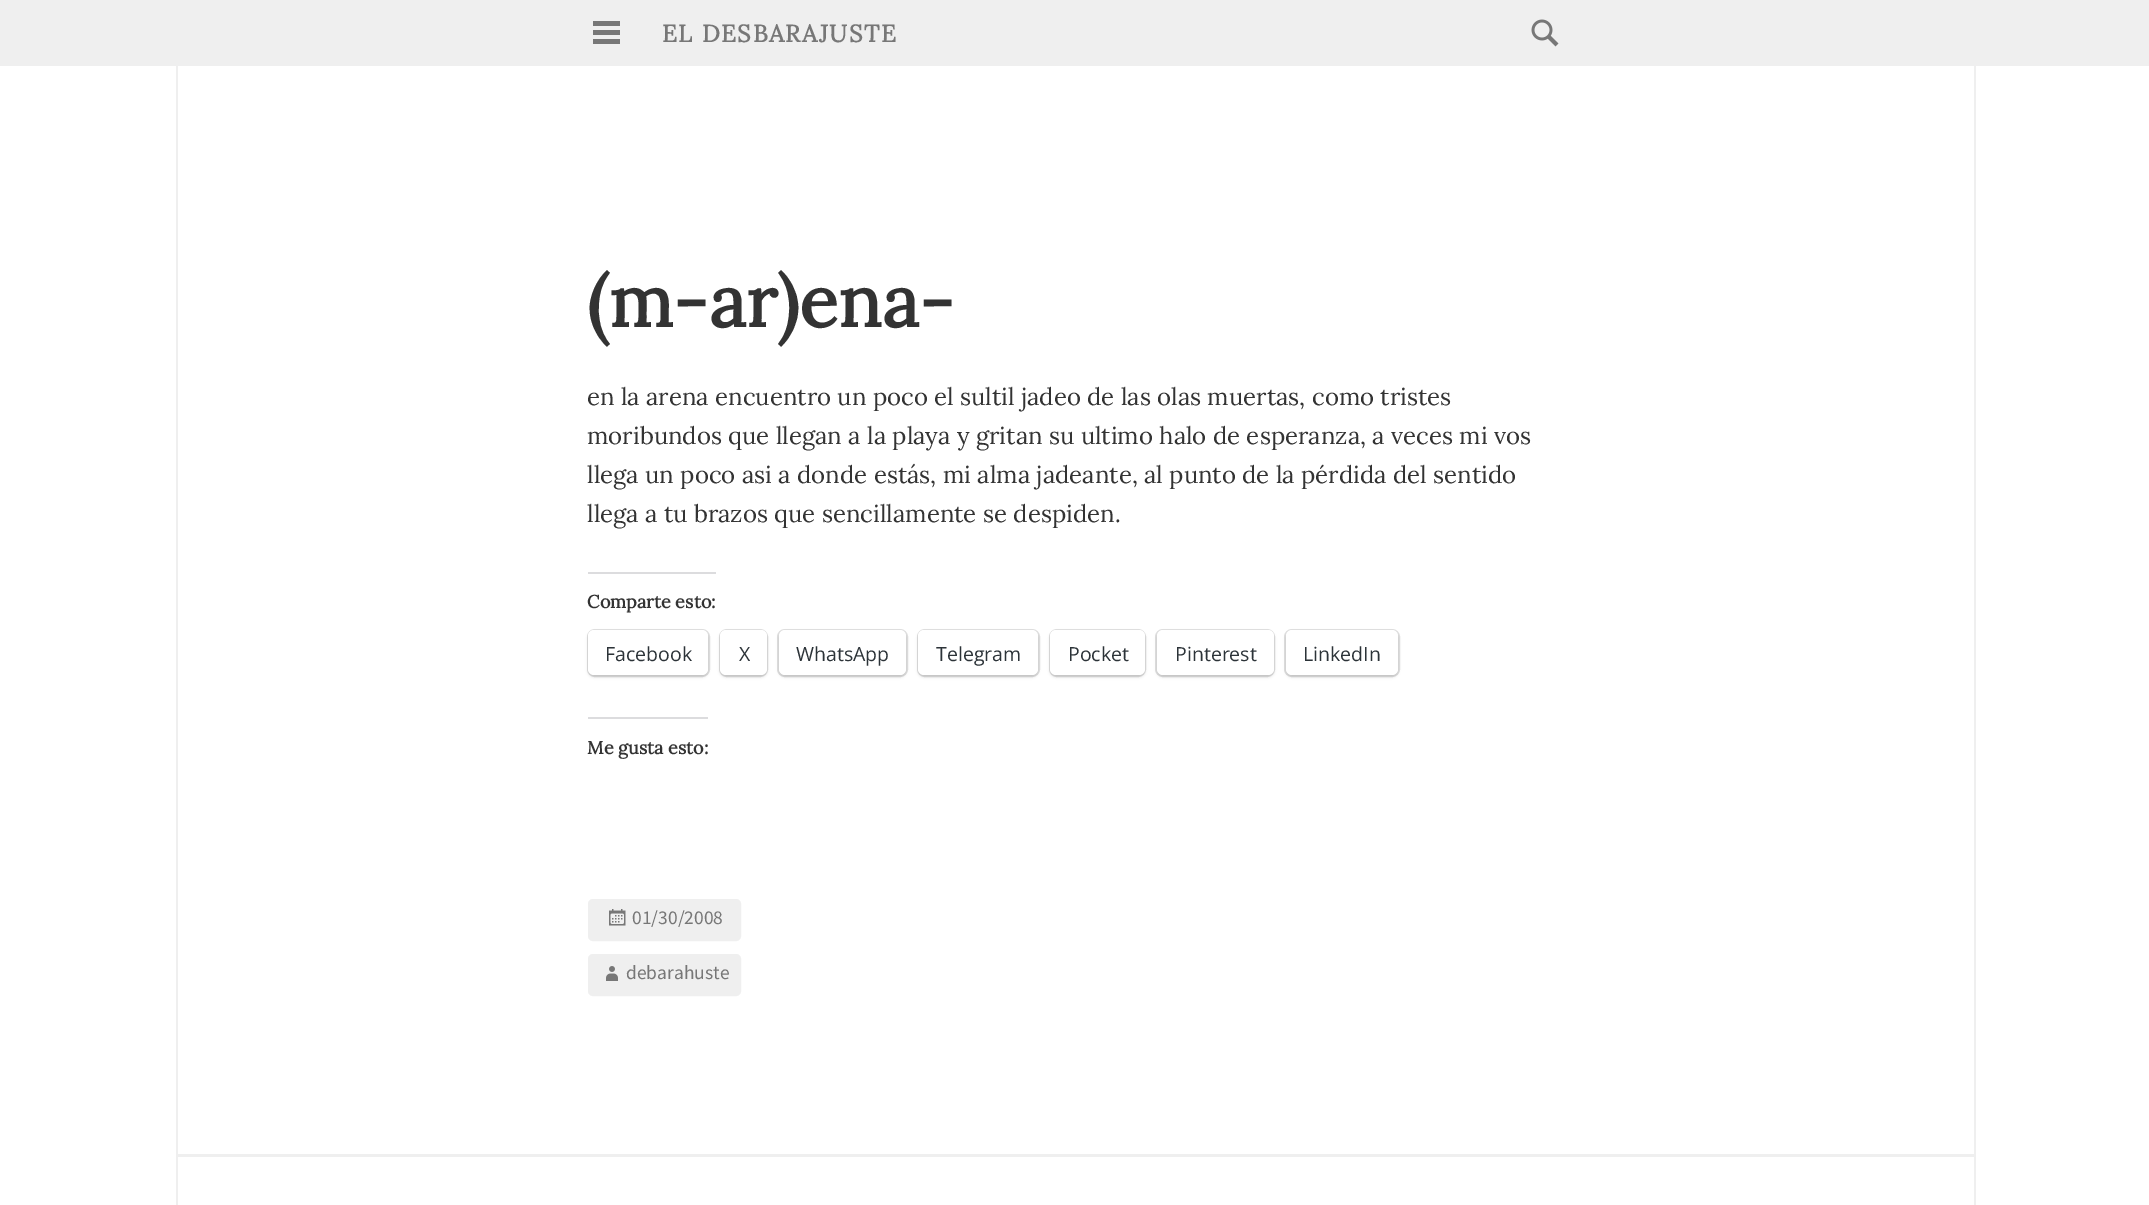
%!PS
<< /PageSize [2149 1205] /PageUsesTransparency true >> setpagedevice
/m/moveto load def
/f/fill load def
/s/stroke load def
/q/gsave load def
/Q_/grestore load def
/w/setlinewidth load def
/C { dup -16 bitshift 255 div exch dup -8 bitshift 255 and 255 div exch 255 and 255 div setrgbcolor } def
/F { [ exch dup neg 0 0 3 -1 roll 0 0 ] selectfont } def
/T { moveto show } def
/R { rectfill } def
/A { dup .setfillconstantalpha .setstrokeconstantalpha } def
/Q { 5 dict begin { /r /h /w /y /x } { exch def } forall
  x r add y moveto x w add y 2 copy h add r arct x w add y h add x 1 index r arct
  x y h add x y r arct x y 2 copy exch w add exch r arct closepath end } def
/S { 12 dict begin { /a /b /q /h /w /y /x } { exch def } forall gsave /was 0 def
  9 -2 -9 { dup b mul 4 div /e exch def 1 sub .425 mul 2.718 exch exp 1 add a .99 .min exch div /now exch def
    1 1 now sub 1 was sub div sub A /was now def
    w h .min e 2 mul add 0 gt { x e sub y e sub w e 2 mul add h e 2 mul add
      q e add b .6 mul add w h .min 2 div e add .min 0 .max Q fill } if } for grestore end } def
/I { 5 dict begin { /h /w /y /x /name } { exch def } forall
  gsave x y translate w h scale
  w h 8 [w 0 0 h 0 0] name (r) file false 3 colorimage grestore end } def
0 .pushpdf14devicefilter
0 1205 translate 1 -1 scale
4 setmiterlimit
16#FFFFFF C
0 0 2149 1205 R
16#EFEFEF C
0 0 2149 66 R
16#777777 C
593 21 27 5 R
593 30 27 5 R
593 39 27 5 R
/Lora-Bold 24 F
662 42 m 1.5 0 (EL DESBARAJUSTE) ashow
(1.rgb) 1531 19 28 28 I
16#EFEFEF C
1974 66 2 1139 R
176 66 2 1139 R
177 1154 1797 3 R
/Lora-Bold 72 F
16#333333 C
(\(m-ar\)ena-) 587 327 T
/Lora-Regular 24 F
(en la arena encuentro un poco el sultil jadeo de las olas muertas, como tristes) 587 405 T
(moribundos que llegan a la playa y gritan su ultimo halo de esperanza, a veces mi vos) 587 444 T
(llega un poco asi a donde estás, mi alma jadeante, al punto de la pérdida del sentido) 587 483 T
(llega a tu brazos que sencillamente se despiden.) 587 522 T
16#DCDCDE C
588 572 128 2 R
/Lora-Bold 18 F
16#333333 C
(Comparte esto:) 587 608 T
16#E0E0E0 C
2 w
588 630 121 46 7 Q s
16#000000 C
588 632 120 45 6 1.5 .12 S
16#FFFFFF C
588 630 120 45 6 Q f
/OpenSans-Regular 19.5 F
16#2C3338 C
(Facebook) 605 661 T
16#E0E0E0 C
720 630 47 46 7 Q s
16#000000 C
720 632 47 45 6 1.5 .12 S
16#FFFFFF C
720 630 47 45 6 Q f
16#2C3338 C
(X) 739 661 T
16#E0E0E0 C
778 630 129 46 7 Q s
16#000000 C
779 632 127 45 6 1.5 .12 S
16#FFFFFF C
779 630 127 45 6 Q f
16#2C3338 C
(WhatsApp) 796 661 T
16#E0E0E0 C
918 630 121 46 7 Q s
16#000000 C
918 632 120 45 6 1.5 .12 S
16#FFFFFF C
918 630 120 45 6 Q f
16#2C3338 C
(Telegram) 936 661 T
16#E0E0E0 C
1050 630 95 46 7 Q s
16#000000 C
1050 632 95 45 6 1.5 .12 S
16#FFFFFF C
1050 630 95 45 6 Q f
16#2C3338 C
(Pocket) 1068 661 T
16#E0E0E0 C
1156 630 118 46 7 Q s
16#000000 C
1157 632 117 45 6 1.5 .12 S
16#FFFFFF C
1157 630 117 45 6 Q f
16#2C3338 C
(Pinterest) 1175 661 T
16#E0E0E0 C
1285 630 114 46 7 Q s
16#000000 C
1286 632 112 45 6 1.5 .12 S
16#FFFFFF C
1286 630 112 45 6 Q f
16#2C3338 C
(LinkedIn) 1303 661 T
16#DCDCDE C
588 717 120 2 R
/Lora-Bold 18 F
16#333333 C
(Me gusta esto:) 587 754 T
16#EFEFEF C
589 900 151 40 4 Q q f Q_
s
(2.rgb) 609 909 17 17 I
/SourceSansPro-Regular 19.5 F
16#777777 C
(01/30/2008) 632 924 T
16#EFEFEF C
589 955 151 40 4 Q q f Q_
s
(3.rgb) 606 966 12 15 I
16#777777 C
(debarahuste) 626 979 T
.poppdf14devicefilter showpage
